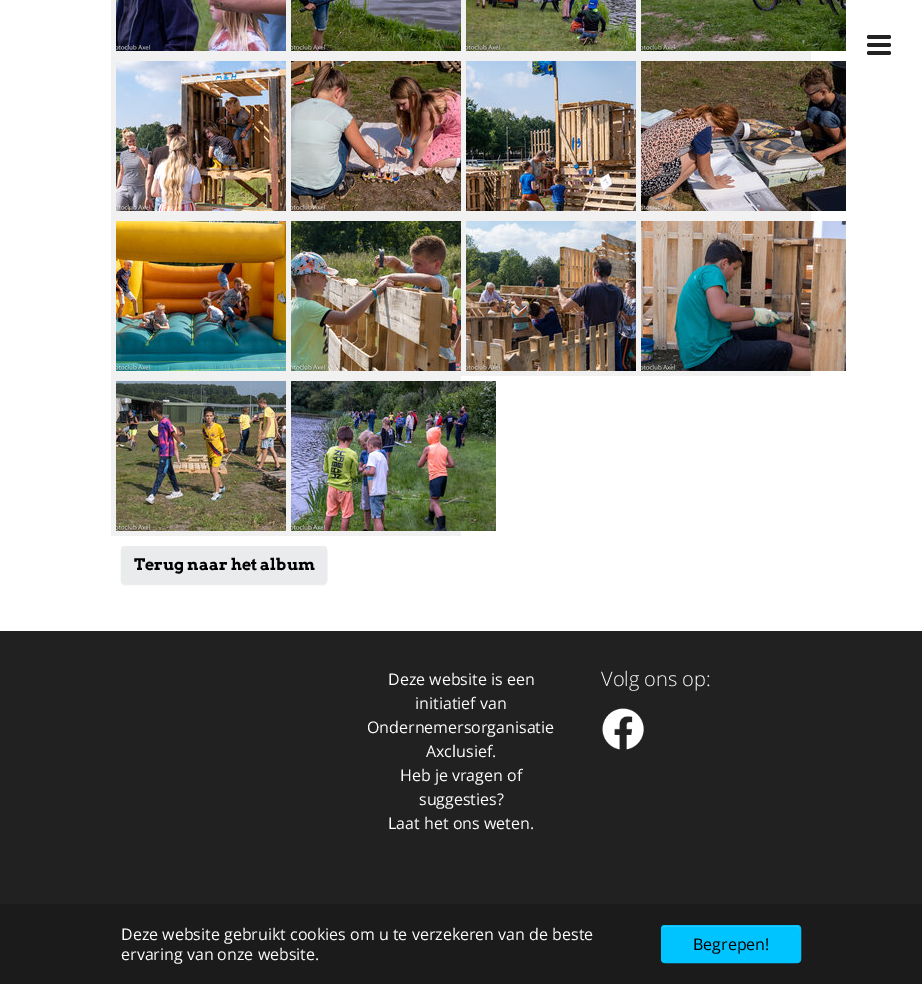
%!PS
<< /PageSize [922 984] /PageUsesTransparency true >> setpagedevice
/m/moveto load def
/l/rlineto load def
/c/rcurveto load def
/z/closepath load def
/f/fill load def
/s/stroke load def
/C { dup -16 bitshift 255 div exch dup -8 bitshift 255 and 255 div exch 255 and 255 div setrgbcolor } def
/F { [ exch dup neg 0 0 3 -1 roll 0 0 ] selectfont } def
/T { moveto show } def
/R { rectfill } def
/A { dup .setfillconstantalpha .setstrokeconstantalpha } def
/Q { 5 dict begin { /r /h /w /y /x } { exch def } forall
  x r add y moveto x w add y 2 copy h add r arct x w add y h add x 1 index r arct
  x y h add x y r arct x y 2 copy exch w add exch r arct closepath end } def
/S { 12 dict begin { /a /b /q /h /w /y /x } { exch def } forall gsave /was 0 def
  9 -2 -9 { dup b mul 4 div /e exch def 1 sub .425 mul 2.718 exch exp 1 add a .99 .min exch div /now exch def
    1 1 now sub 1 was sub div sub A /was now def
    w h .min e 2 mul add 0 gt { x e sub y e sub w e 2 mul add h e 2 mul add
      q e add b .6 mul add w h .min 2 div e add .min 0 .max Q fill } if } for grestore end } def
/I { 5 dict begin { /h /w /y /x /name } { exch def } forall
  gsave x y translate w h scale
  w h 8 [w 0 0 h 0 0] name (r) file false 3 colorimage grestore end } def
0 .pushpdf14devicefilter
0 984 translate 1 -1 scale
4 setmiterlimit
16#FFFFFF C
0 0 922 984 R
16#F1F1F1 C
111 0 700 56 R
(1.rgb) 116 0 170 51 I
(2.rgb) 291 0 170 51 I
(3.rgb) 466 0 170 51 I
(4.rgb) 641 0 205 51 I
111 56 700 160 R
(5.rgb) 116 61 170 150 I
(6.rgb) 291 61 170 150 I
(7.rgb) 466 61 170 150 I
(8.rgb) 641 61 205 150 I
111 216 700 160 R
(9.rgb) 116 221 170 150 I
(10.rgb) 291 221 170 150 I
(11.rgb) 466 221 170 150 I
(12.rgb) 641 221 205 150 I
111 376 350 160 R
(13.rgb) 116 381 170 150 I
(14.rgb) 291 381 205 150 I
16#000000 C
121 547 206 38 4 .5 .07 S
16#EAEBEC C
121 546 206 38 4 Q f
16#EDEEEF C
125 548 m 198 0 l 2 0 3 1 3 3 c 0 -2 -1 -4 -3 -4 c -198 0 l -2 0 -3 2 -3 4 c 0 -2 1 -3 3 -3 c z f
16#EAEBEC C
121.5 546.5 205 37 3.5 Q s
/Arvo-Bold 16 F
16#000000 C
(Terug naar het album) 134 570 T
16#212121 C
0 631 922 273 R
/OpenSans-Regular 16 F
16#FFFFFF C
(Deze website is een) 388 685 T
(initiatief van) 415 709 T
(Ondernemersorganisatie) 367 733 T
(Axclusief.) 426 757 T
(Heb je vragen of) 400 781 T
(suggesties?) 419 805 T
(Laat het ons weten.) 388 829 T
16#222222 C
867 35 24 4 2 Q f
867 43 24 4 2 Q f
867 51 24 4 2 Q f
/OpenSans-Light 20 F
16#FFFFFF C
(Volg ons op:) 601 686 T
(15.rgb) 602 708 42 42 I
16#1B1B1B C
0 904 922 80 R
/OpenSans-Regular 16 F
16#FFFFFF C
(Deze website gebruikt cookies om u te verzekeren van de beste) 121 940 T
(ervaring van onze website.) 121 960 T
16#00C4FF C
661 925 140 38 4 Q f
16#26CDFF C
665 927 m 132 0 l 2 0 3 1 3 3 c 0 -2 0 -4 -2 -4 c -134 0 l -2 0 -2 2 -2 4 c 0 -2 1 -3 3 -3 c z f
16#00C4FF C
661.5 925.5 139 37 3.5 Q s
16#000000 C
(Begrepen!) 693 950 T
.poppdf14devicefilter showpage
